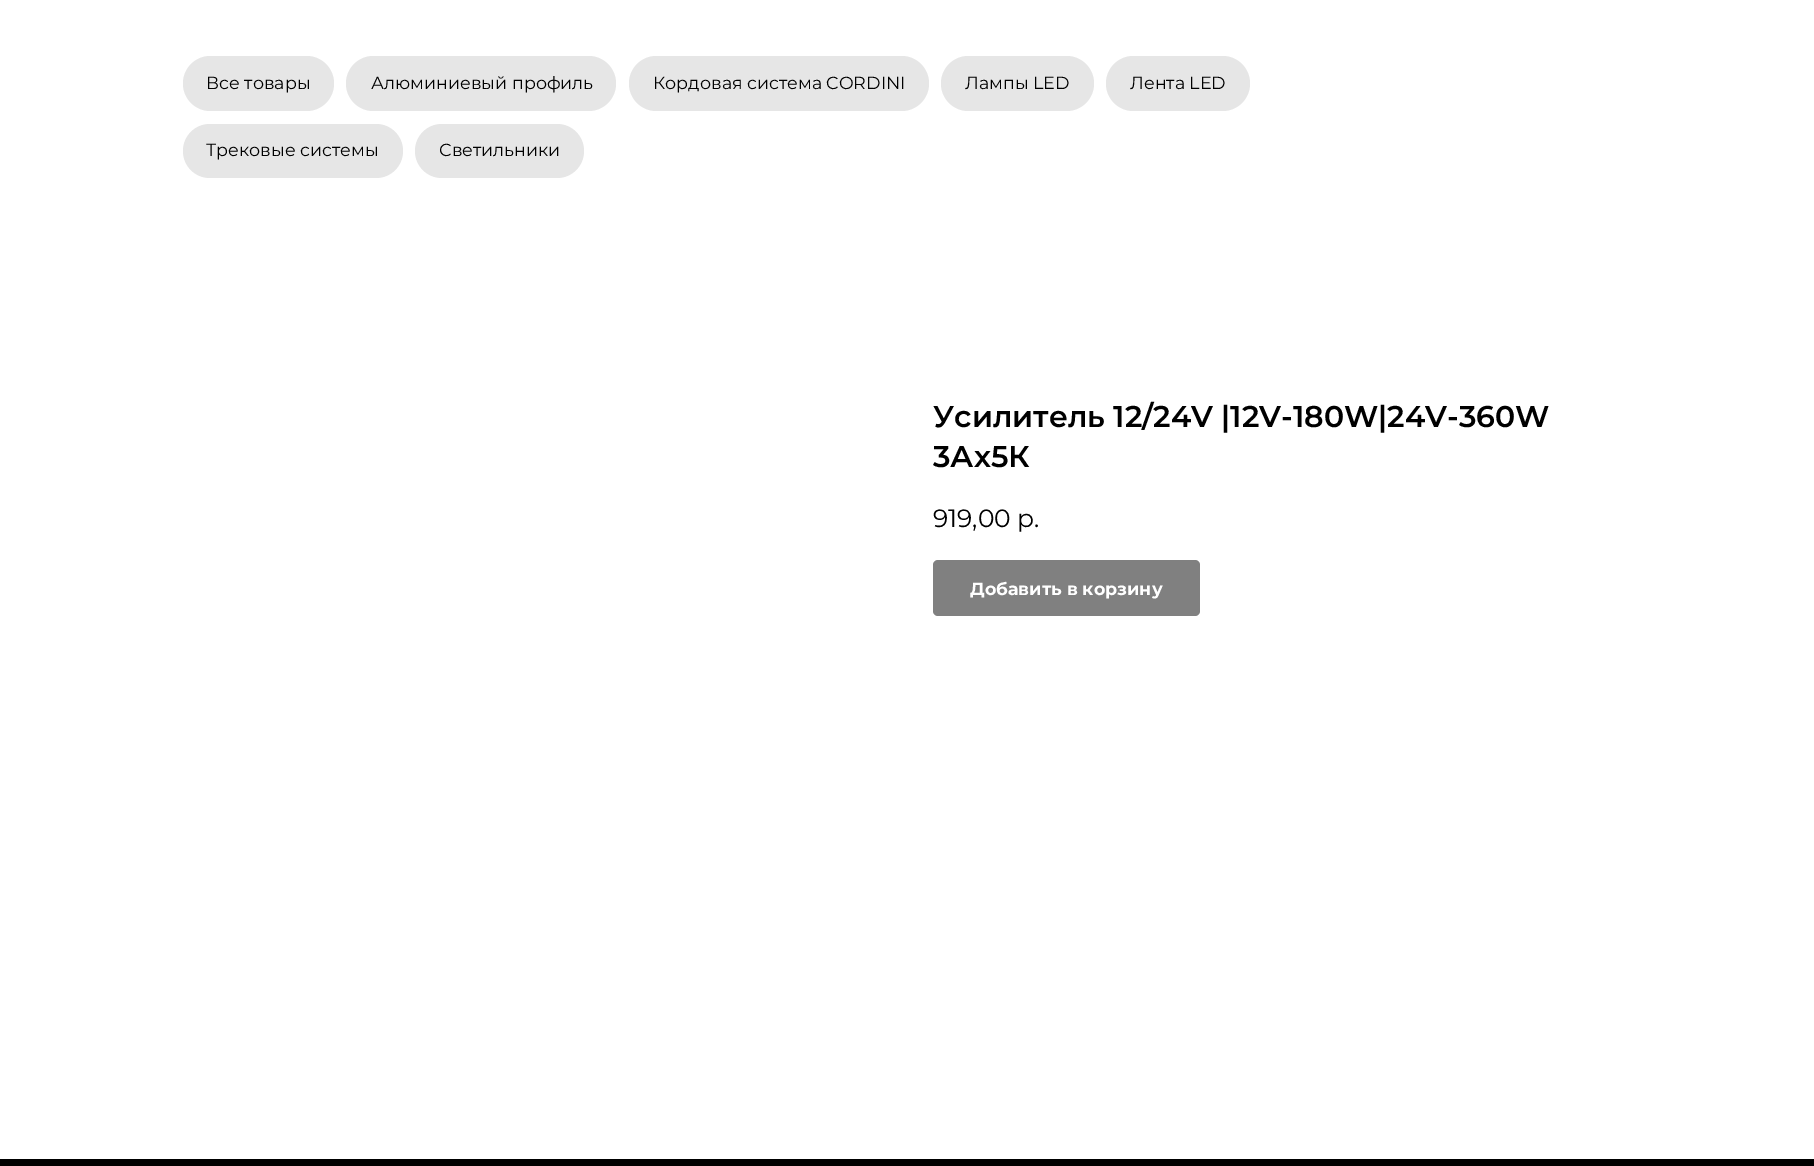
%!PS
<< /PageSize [1814 1166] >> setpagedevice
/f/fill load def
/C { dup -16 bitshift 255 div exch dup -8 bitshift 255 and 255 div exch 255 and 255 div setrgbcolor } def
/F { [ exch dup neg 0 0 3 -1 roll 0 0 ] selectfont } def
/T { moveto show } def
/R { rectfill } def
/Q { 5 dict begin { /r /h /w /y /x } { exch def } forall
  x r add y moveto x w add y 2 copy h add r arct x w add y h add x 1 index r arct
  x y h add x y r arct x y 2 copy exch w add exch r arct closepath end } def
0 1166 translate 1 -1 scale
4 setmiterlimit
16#FFFFFF C
0 0 1814 1166 R
16#E6E6E6 C
183 56 151 55 27.5 Q f
/Montserrat-Regular 17.5 F
16#000000 C
(Все товары) 206 89 T
16#E6E6E6 C
346 56 270 55 27.5 Q f
16#000000 C
(Алюминиевый профиль) 371 89 T
16#E6E6E6 C
629 56 300 55 27.5 Q f
16#000000 C
(Кордовая система CORDINI) 653 89 T
16#E6E6E6 C
941 56 153 55 27.5 Q f
16#000000 C
(Лампы LED) 965 89 T
16#E6E6E6 C
1106 56 144 55 27.5 Q f
16#000000 C
(Лента LED) 1130 89 T
16#E6E6E6 C
183 124 220 54 27 Q f
16#000000 C
(Трековые системы) 206 156 T
16#E6E6E6 C
415 124 169 54 27 Q f
16#000000 C
(Светильники) 439 156 T
/Montserrat-SemiBold 30 F
(Усилитель 12/24V |12V-180W|24V-360W) 933 427 T
(3Ах5К) 933 467 T
/Montserrat-Regular 25 F
(919,00) 933 527 T
(р.) 1017 527 T
16#808080 C
933 560 267 56 5 Q f
/Montserrat-Bold 17.5 F
16#FFFFFF C
(Добавить в корзину) 970 595 T
16#000000 C
0 1159 1814 7 R
showpage
